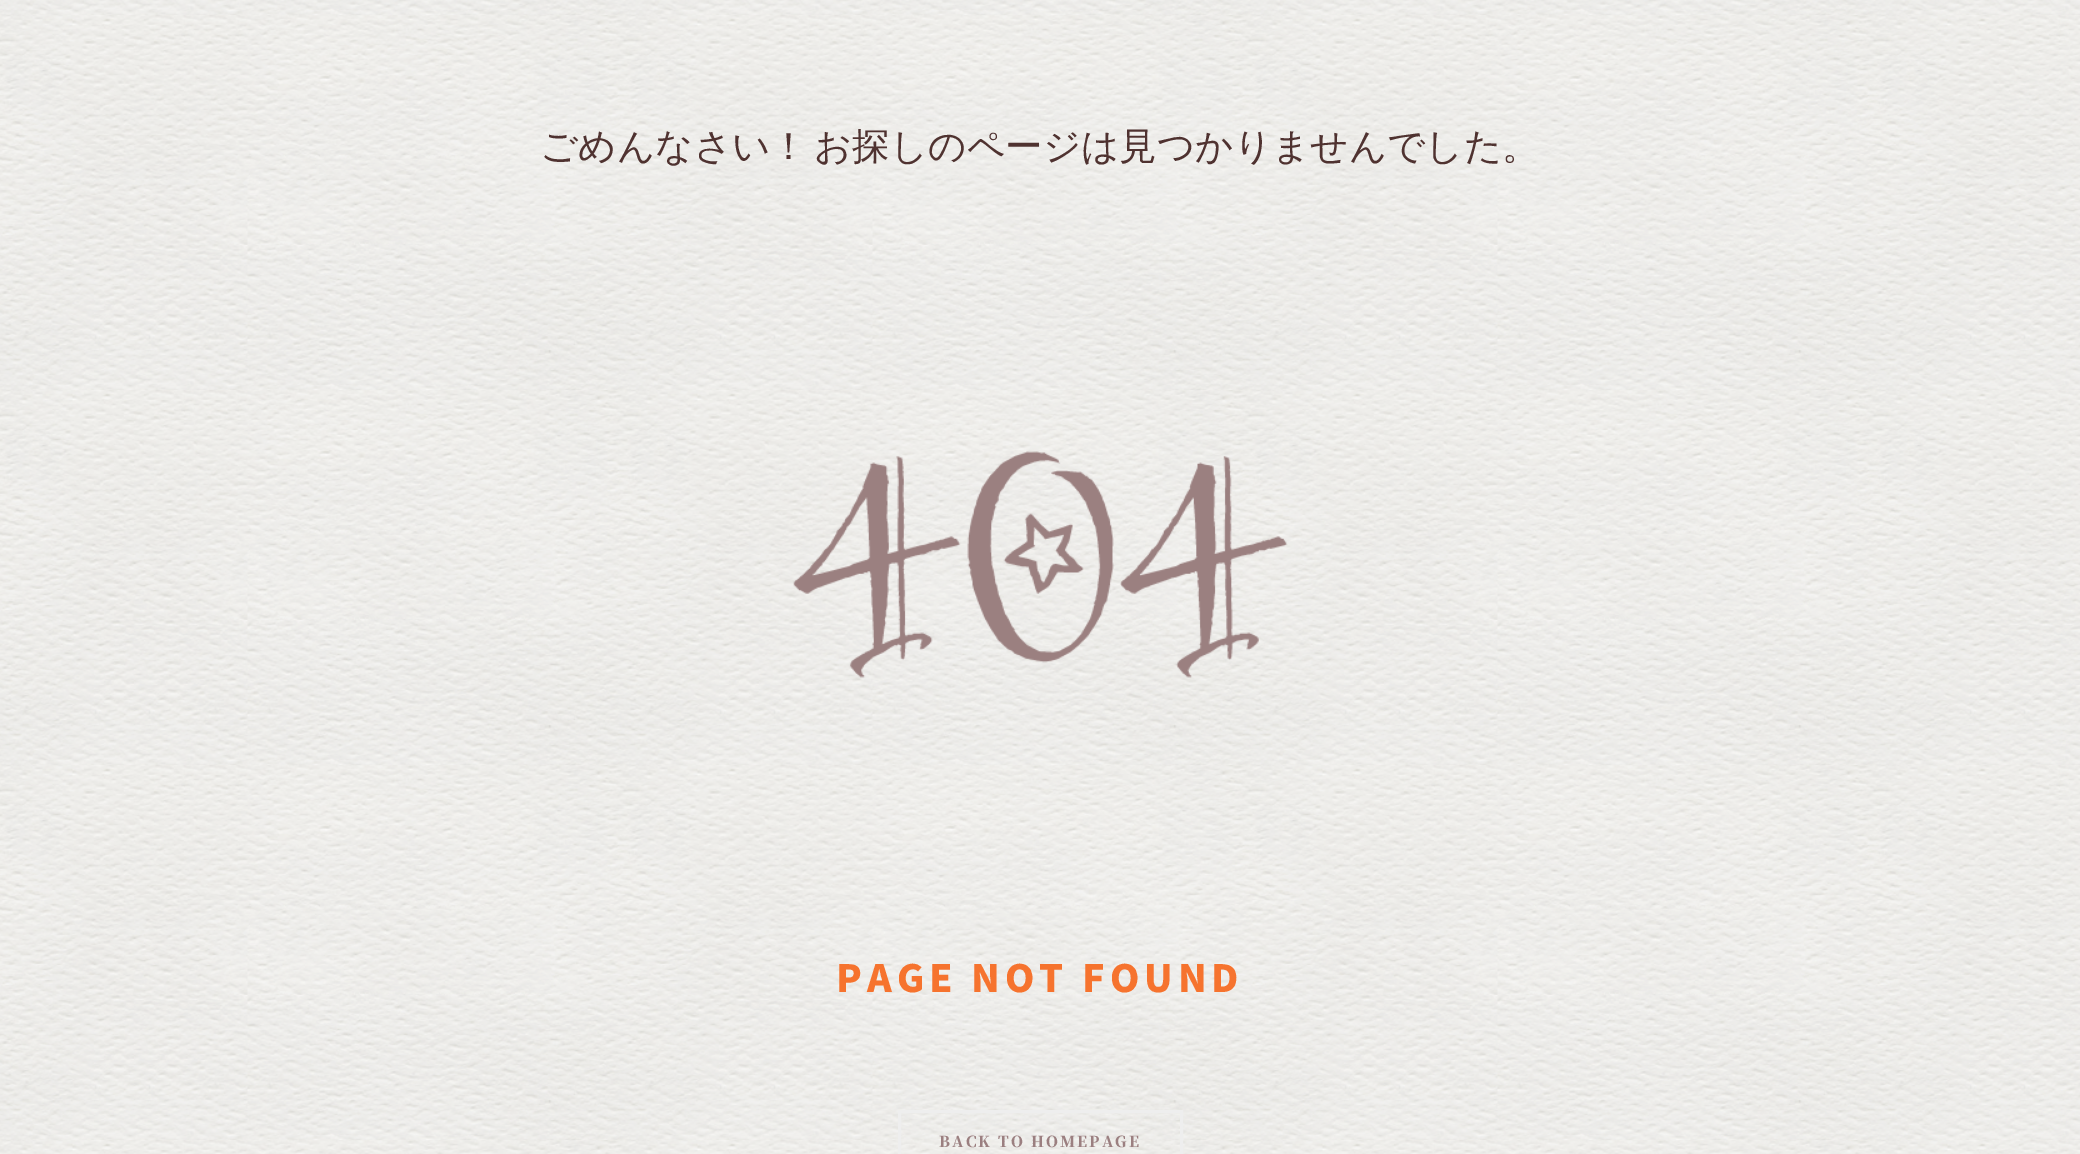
%!PS
<< /PageSize [2080 1154] >> setpagedevice
/m/moveto load def
/w/setlinewidth load def
/C { dup -16 bitshift 255 div exch dup -8 bitshift 255 and 255 div exch 255 and 255 div setrgbcolor } def
/F { [ exch dup neg 0 0 3 -1 roll 0 0 ] selectfont } def
/R { rectfill } def
/I { 5 dict begin { /h /w /y /x /name } { exch def } forall
  gsave x y translate w h scale
  w h 8 [w 0 0 h 0 0] name (r) file false 3 colorimage grestore end } def
0 1154 translate 1 -1 scale
4 setmiterlimit
16#FFFFFF C
0 0 2080 1154 R
(1.rgb) 0 0 2080 1154 I
/WenQuanYiZenHei-Medium 37.5 F
16#4F3230 C
540 159 m -5 0 32 (ごめんなさい！ お探しのページは見つかりませんでした。) widthshow
(2.rgb) 793 451 495 227 I
/NotoSansJP-Black 37.5 F
16#F6732E C
836 992 m 5 0 (PAGE NOT FOUND) ashow
16#EEEEEE C
3 w
899.5 1111.5 282 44 rectstroke
/NotoSerifJP-Black 15 F
16#9B7F80 C
939 1147 m 2.1 0 (BACK TO HOMEPAGE) ashow
showpage
